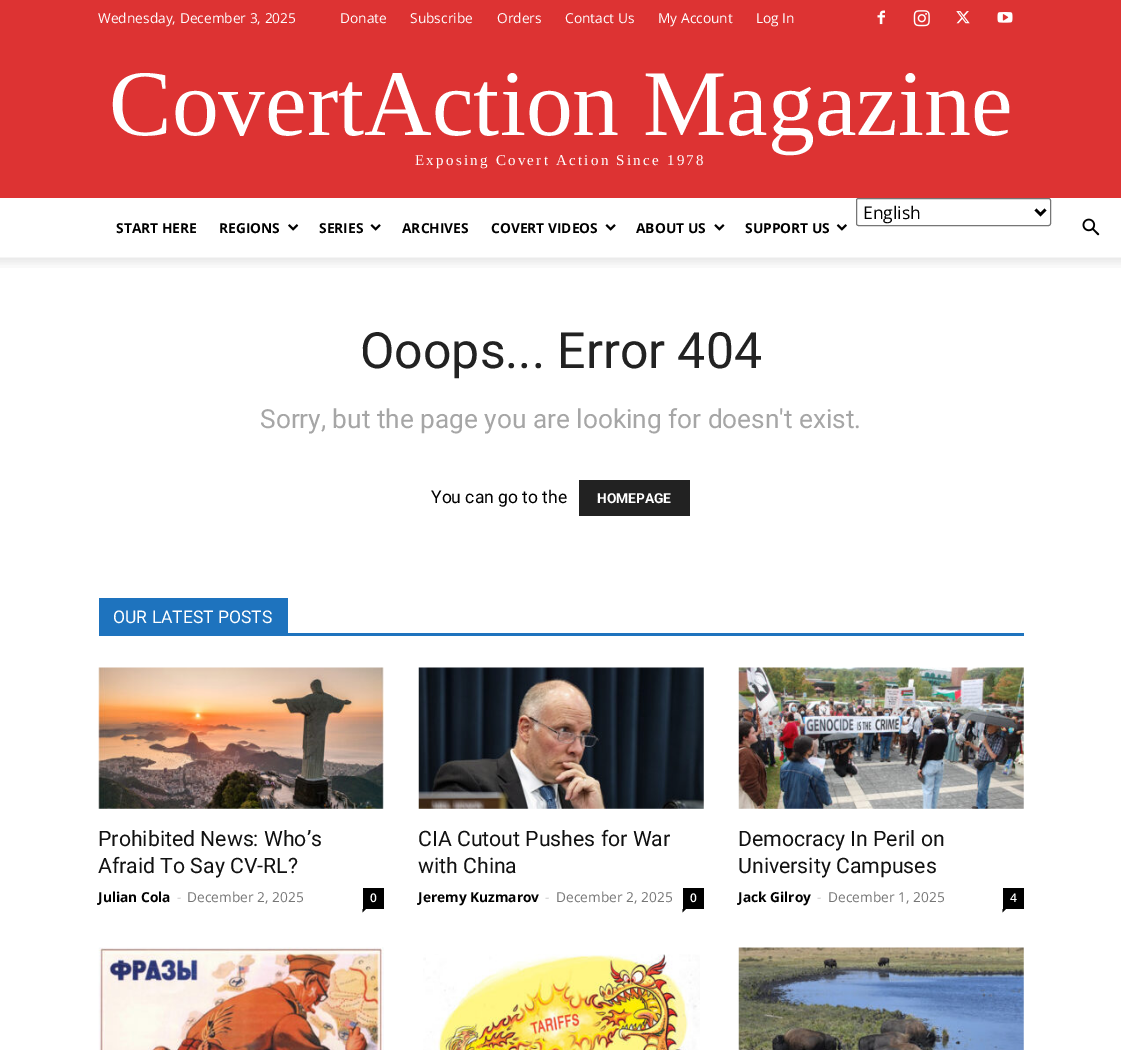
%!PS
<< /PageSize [1121 1050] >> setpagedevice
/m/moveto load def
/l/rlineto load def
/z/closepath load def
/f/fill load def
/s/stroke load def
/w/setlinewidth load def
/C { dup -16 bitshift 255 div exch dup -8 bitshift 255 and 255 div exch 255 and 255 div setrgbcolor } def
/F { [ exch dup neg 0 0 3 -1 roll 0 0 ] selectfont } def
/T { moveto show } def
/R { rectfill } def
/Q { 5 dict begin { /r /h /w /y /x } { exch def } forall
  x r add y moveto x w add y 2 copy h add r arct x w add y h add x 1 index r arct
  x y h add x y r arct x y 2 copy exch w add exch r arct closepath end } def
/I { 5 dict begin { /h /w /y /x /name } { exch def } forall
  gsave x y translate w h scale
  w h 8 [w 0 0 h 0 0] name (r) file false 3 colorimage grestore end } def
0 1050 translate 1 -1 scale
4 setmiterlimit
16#FFFFFF C
0 0 1121 1050 R
16#DD3333 C
0 0 1121 198 R
/OpenSans-Regular 13.75 F
16#FFFFFF C
(Wednesday, December 3, 2025) 98 23 T
(Donate) 340 23 T
(Subscribe) 410 23 T
(Orders) 497 23 T
(Contact Us) 565 23 T
(My Account) 658 23 T
(Log In) 756 23 T
(1.rgb) 877 10 8 15 I
(2.rgb) 913 10 17 17 I
(3.rgb) 956 11 14 13 I
(4.rgb) 997 12 16 11 I
/LiberationSerif-Regular 93.75 F
(CovertAction Magazine) 109 135 T
/LiberationSerif-Regular 15 F
415 165 m 2.25 0 (Exposing Covert Action Since 1978) ashow
16#767676 C
856.5 198.5 194 27 2 Q s
16#000000 C
2.5 w
1035.5 209.5 m 5 5 l 5 -5 l s
/OpenSans-Regular 17.5 F
(English) 863 219 T
/OpenSans-Bold 13.75 F
(START HERE) 116 233 T
(REGIONS) 219 233 T
(5.rgb) 288 224 11 7 I
(SERIES) 319 233 T
(6.rgb) 370 224 11 7 I
(ARCHIVES) 402 233 T
(COVERT VIDEOS) 491 233 T
(6.rgb) 605 224 11 7 I
(ABOUT US) 636 233 T
(7.rgb) 714 224 11 7 I
(SUPPORT US) 745 233 T
(8.rgb) 836 224 11 7 I
(9.rgb) 1082 218 18 18 I
(10.rgb) 0 257 1121 11 I
/Roboto-Regular 50 F
16#222222 C
(Ooops... Error 404) 360 368 T
/Roboto-Regular 26.25 F
16#A6A6A6 C
(Sorry, but the page you are looking for doesn't exist.) 260 428 T
/Roboto-Regular 17.5 F
16#000000 C
(You can go to the) 431 503 T
16#222222 C
579 480 111 36 R
/Roboto-Bold 13.75 F
16#FFFFFF C
(HOMEPAGE) 597 503 T
16#1E73BE C
99 633 925 3 R
99 598 189 35 R
/Roboto-Regular 17.5 F
16#FFFFFF C
(OUR LATEST POSTS) 113 623 T
(11.rgb) 98 667 286 142 I
/Roboto-Regular 21.25 F
16#111111 C
(Prohibited News: Who’s) 98 846 T
(Afraid To Say CV-RL?) 98 873 T
/OpenSans-Bold 13.75 F
16#000000 C
(Julian Cola) 98 902 T
/OpenSans-Regular 13.75 F
16#CCCCCC C
(-) 177 902 T
16#767676 C
(December 2, 2025) 187 902 T
16#000000 C
363 888 21 21 R
/OpenSans-SemiBold 12 F
16#FFFFFF C
(0) 370 902 T
16#000000 C
362.5 909 m 3.5 0 l -3.5 3.5 l z f
(12.rgb) 418 667 286 142 I
/Roboto-Regular 21.25 F
16#111111 C
(CIA Cutout Pushes for War) 418 846 T
(with China) 418 873 T
/OpenSans-Bold 13.75 F
16#000000 C
(Jeremy Kuzmarov) 418 902 T
/OpenSans-Regular 13.75 F
16#CCCCCC C
(-) 545 902 T
16#767676 C
(December 2, 2025) 556 902 T
16#000000 C
683 888 21 21 R
/OpenSans-SemiBold 12 F
16#FFFFFF C
(0) 690 902 T
16#000000 C
682.5 909 m 3.5 0 l -3.5 3.5 l z f
(13.rgb) 738 667 286 142 I
/Roboto-Regular 21.25 F
16#111111 C
(Democracy In Peril on) 738 846 T
(University Campuses) 738 873 T
/OpenSans-Bold 13.75 F
16#000000 C
(Jack Gilroy) 738 902 T
/OpenSans-Regular 13.75 F
16#CCCCCC C
(-) 817 902 T
16#767676 C
(December 1, 2025) 828 902 T
16#000000 C
1003 888 21 21 R
/OpenSans-SemiBold 12 F
16#FFFFFF C
(4) 1010 902 T
16#000000 C
1002.5 909 m 3.5 0 l -3.5 3.5 l z f
(14.rgb) 98 947 286 103 I
(15.rgb) 423 954 277 96 I
(16.rgb) 738 947 286 103 I
showpage
